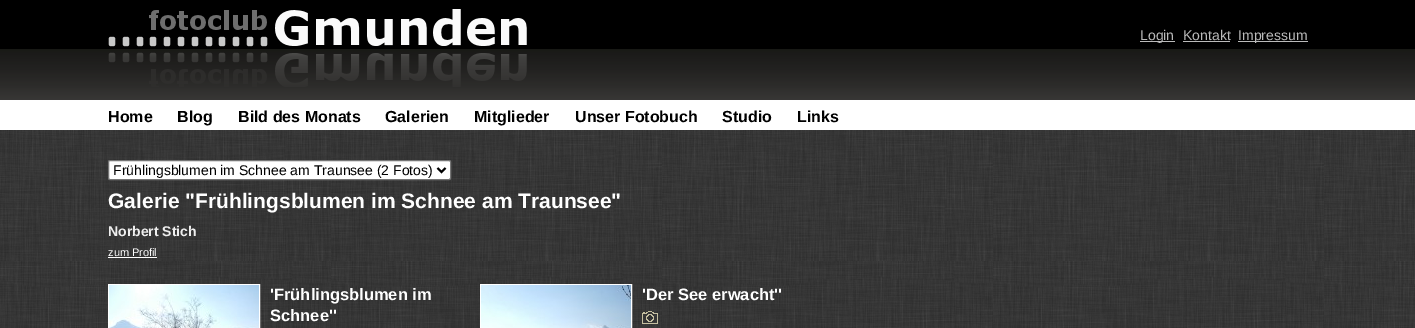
%!PS
<< /PageSize [1415 328] >> setpagedevice
/m/moveto load def
/l/rlineto load def
/f/fill load def
/s/stroke load def
/q/gsave load def
/Q_/grestore load def
/w/setlinewidth load def
/C { dup -16 bitshift 255 div exch dup -8 bitshift 255 and 255 div exch 255 and 255 div setrgbcolor } def
/F { [ exch dup neg 0 0 3 -1 roll 0 0 ] selectfont } def
/T { moveto show } def
/R { rectfill } def
/Q { 5 dict begin { /r /h /w /y /x } { exch def } forall
  x r add y moveto x w add y 2 copy h add r arct x w add y h add x 1 index r arct
  x y h add x y r arct x y 2 copy exch w add exch r arct closepath end } def
/I { 5 dict begin { /h /w /y /x /name } { exch def } forall
  gsave x y translate w h scale
  w h 8 [w 0 0 h 0 0] name (r) file false 3 colorimage grestore end } def
0 328 translate 1 -1 scale
4 setmiterlimit
16#FFFFFF C
0 0 1415 328 R
(1.rgb) 0 130 1415 198 I
(2.rgb) 0 0 1415 100 I
(3.rgb) 108 9 419 78 I
16#BBBBBB C
1140 41 35 1 R
/LiberationSans-Regular 14 F
(Login) 1140 40 T
(Kontakt) 1183 40 T
1183 41 47 1 R
1238 41 70 1 R
(Impressum) 1238 40 T
/LiberationSans-Bold 16 F
16#000000 C
(Home) 108 122 T
(Blog) 177 122 T
(Bild des Monats) 238 122 T
(Galerien) 385 122 T
(Mitglieder) 474 122 T
(Unser Fotobuch) 575 122 T
(Studio) 722 122 T
(Links) 797 122 T
16#FFFFFF C
108.5 160.5 342 19 1.5 Q q f Q_
16#767676 C
s
16#000000 C
2 w
437.5 168 m 4 4 l 4 -4 l s
/LiberationSans-Regular 14 F
(Frühlingsblumen im Schnee am Traunsee \(2 Fotos\)) 113 175 T
/LiberationSans-Bold 21 F
16#FFFFFF C
(Galerie "Frühlingsblumen im Schnee am Traunsee") 108 208 T
/LiberationSans-Bold 14 F
16#EEEEEE C
(Norbert Stich) 108 236 T
/LiberationSans-Regular 11 F
16#FFFFFF C
(zum Profil) 108 256 T
108 257 49 1 R
1 w
108.5 284.5 151 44 rectstroke
(4.rgb) 109 285 150 43 I
/LiberationSans-Bold 16.5 F
('Frühlingsblumen im) 270 300 T
(Schnee'') 270 321 T
480.5 284.5 151 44 rectstroke
(5.rgb) 481 285 150 43 I
('Der See erwacht'') 642 300 T
(6.rgb) 642 311 16 13 I
showpage
